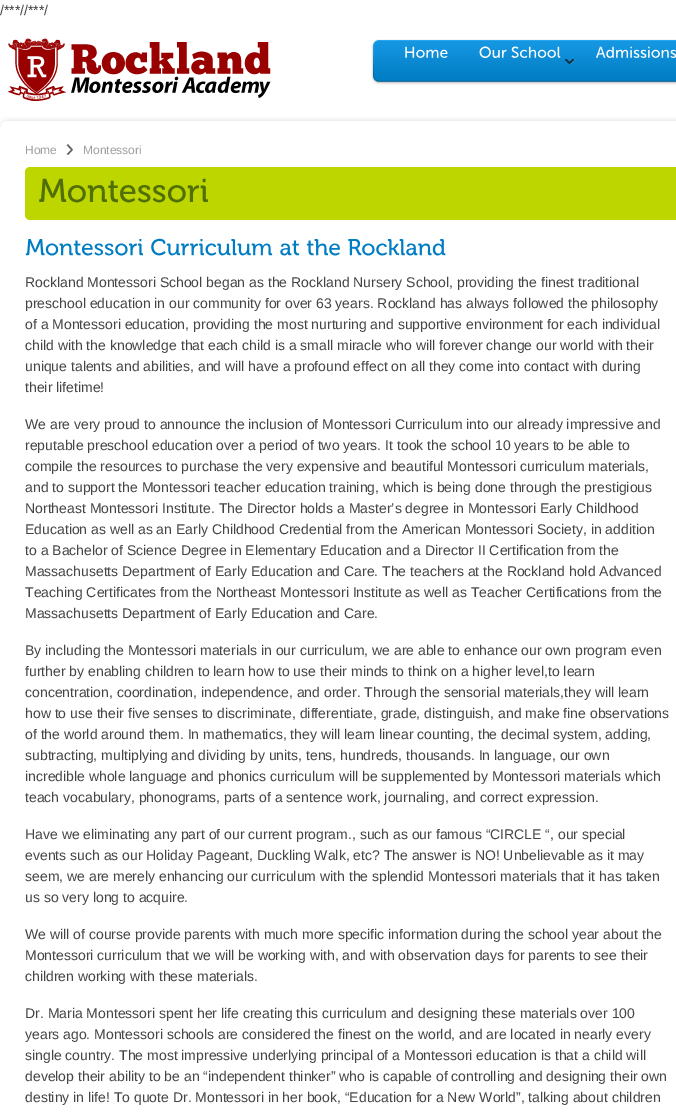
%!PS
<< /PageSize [676 1115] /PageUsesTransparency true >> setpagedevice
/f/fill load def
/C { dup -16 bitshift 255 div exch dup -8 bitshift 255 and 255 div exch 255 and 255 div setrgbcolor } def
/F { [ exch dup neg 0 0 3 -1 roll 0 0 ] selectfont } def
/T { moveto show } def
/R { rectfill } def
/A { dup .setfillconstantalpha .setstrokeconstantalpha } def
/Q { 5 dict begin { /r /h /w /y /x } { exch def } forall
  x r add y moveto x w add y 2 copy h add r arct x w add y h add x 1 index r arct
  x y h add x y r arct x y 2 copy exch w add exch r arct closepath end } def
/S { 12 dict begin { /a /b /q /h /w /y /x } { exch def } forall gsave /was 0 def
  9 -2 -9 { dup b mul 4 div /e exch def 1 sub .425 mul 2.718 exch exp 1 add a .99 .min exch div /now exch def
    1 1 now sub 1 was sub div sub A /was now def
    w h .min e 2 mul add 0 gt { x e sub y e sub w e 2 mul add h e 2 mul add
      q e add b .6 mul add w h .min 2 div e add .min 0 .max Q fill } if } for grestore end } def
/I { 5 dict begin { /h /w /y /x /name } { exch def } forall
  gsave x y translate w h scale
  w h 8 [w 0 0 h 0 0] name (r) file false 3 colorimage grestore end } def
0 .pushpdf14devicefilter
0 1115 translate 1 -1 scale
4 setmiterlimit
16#FFFFFF C
0 0 676 1115 R
/LiberationSans-Regular 14 F
16#444444 C
(/***//***/) 0 15 T
(1.rgb) 8 38 263 63 I
(2.rgb) 371 39 18 46 I
(3.rgb) 389 39 287 46 I
(4.rgb) 405 46 43 12 I
(5.rgb) 479 46 28 12 I
(6.rgb) 511 46 50 12 I
(7.rgb) 565 59 10 5 I
(8.rgb) 596 46 80 12 I
16#666666 C
1 122 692 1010 8 3 .4 S
16#FFFFFF C
0 121 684 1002 8 Q f
/LiberationSans-Regular 12 F
16#9F9F9F C
(Home) 25 154 T
(9.rgb) 66 144 7 11 I
(Montessori) 83 154 T
16#BED600 C
25 167 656 53 5 Q f
(10.rgb) 39 178 169 25 I
(11.rgb) 25 239 118 17 I
(12.rgb) 151 238 122 18 I
(13.rgb) 280 240 20 16 I
(14.rgb) 306 239 34 17 I
(15.rgb) 348 239 98 17 I
/LiberationSans-Regular 14 F
16#444444 C
(Rockland Montessori School began as the Rockland Nursery School, providing the finest traditional) 25 287 T
(preschool education in our community for over 63 years. Rockland has always followed the philosophy) 25 308 T
(of a Montessori education, providing the most nurturing and supportive environment for each individual) 25 329 T
(child with the knowledge that each child is a small miracle who will forever change our world with their) 25 350 T
(unique talents and abilities, and will have a profound effect on all they come into contact with during) 25 371 T
(their lifetime!) 25 392 T
(We are very proud to announce the inclusion of Montessori Curriculum into our already impressive and) 25 429 T
(reputable preschool education over a period of two years. It took the school 10 years to be able to) 25 450 T
(compile the resources to purchase the very expensive and beautiful Montessori curriculum materials,) 25 471 T
(and to support the Montessori teacher education training, which is being done through the prestigious) 25 492 T
(Northeast Montessori Institute. The Director holds a Master’s degree in Montessori Early Childhood) 25 513 T
(Education as well as an Early Childhood Credential from the American Montessori Society, in addition) 25 534 T
(to a Bachelor of Science Degree in Elementary Education and a Director II Certification from the) 25 555 T
(Massachusetts Department of Early Education and Care. The teachers at the Rockland hold Advanced) 25 576 T
(Teaching Certificates from the Northeast Montessori Institute as well as Teacher Certifications from the) 25 597 T
(Massachusetts Department of Early Education and Care.) 25 618 T
(By including the Montessori materials in our curriculum, we are able to enhance our own program even) 25 655 T
(further by enabling children to learn how to use their minds to think on a higher level,to learn) 25 676 T
(concentration, coordination, independence, and order. Through the sensorial materials,they will learn) 25 697 T
(how to use their five senses to discriminate, differentiate, grade, distinguish, and make fine observations) 25 718 T
(of the world around them. In mathematics, they will learn linear counting, the decimal system, adding,) 25 739 T
(subtracting, multiplying and dividing by units, tens, hundreds, thousands. In language, our own) 25 760 T
(incredible whole language and phonics curriculum will be supplemented by Montessori materials which) 25 781 T
(teach vocabulary, phonograms, parts of a sentence work, journaling, and correct expression.) 25 802 T
(Have we eliminating any part of our current program., such as our famous “CIRCLE “, our special) 25 839 T
(events such as our Holiday Pageant, Duckling Walk, etc? The answer is NO! Unbelievable as it may) 25 860 T
(seem, we are merely enhancing our curriculum with the splendid Montessori materials that it has taken) 25 881 T
(us so very long to acquire.) 25 902 T
(We will of course provide parents with much more specific information during the school year about the) 25 939 T
(Montessori curriculum that we will be working with, and with observation days for parents to see their) 25 960 T
(children working with these materials.) 25 981 T
(Dr. Maria Montessori spent her life creating this curriculum and designing these materials over 100) 25 1018 T
(years ago. Montessori schools are considered the finest on the world, and are located in nearly every) 25 1039 T
(single country. The most impressive underlying principal of a Montessori education is that a child will) 25 1060 T
(develop their ability to be an “independent thinker” who is capable of controlling and designing their own) 25 1081 T
(destiny in life! To quote Dr. Montessori in her book, “Education for a New World”, talking about children) 25 1102 T
.poppdf14devicefilter showpage
